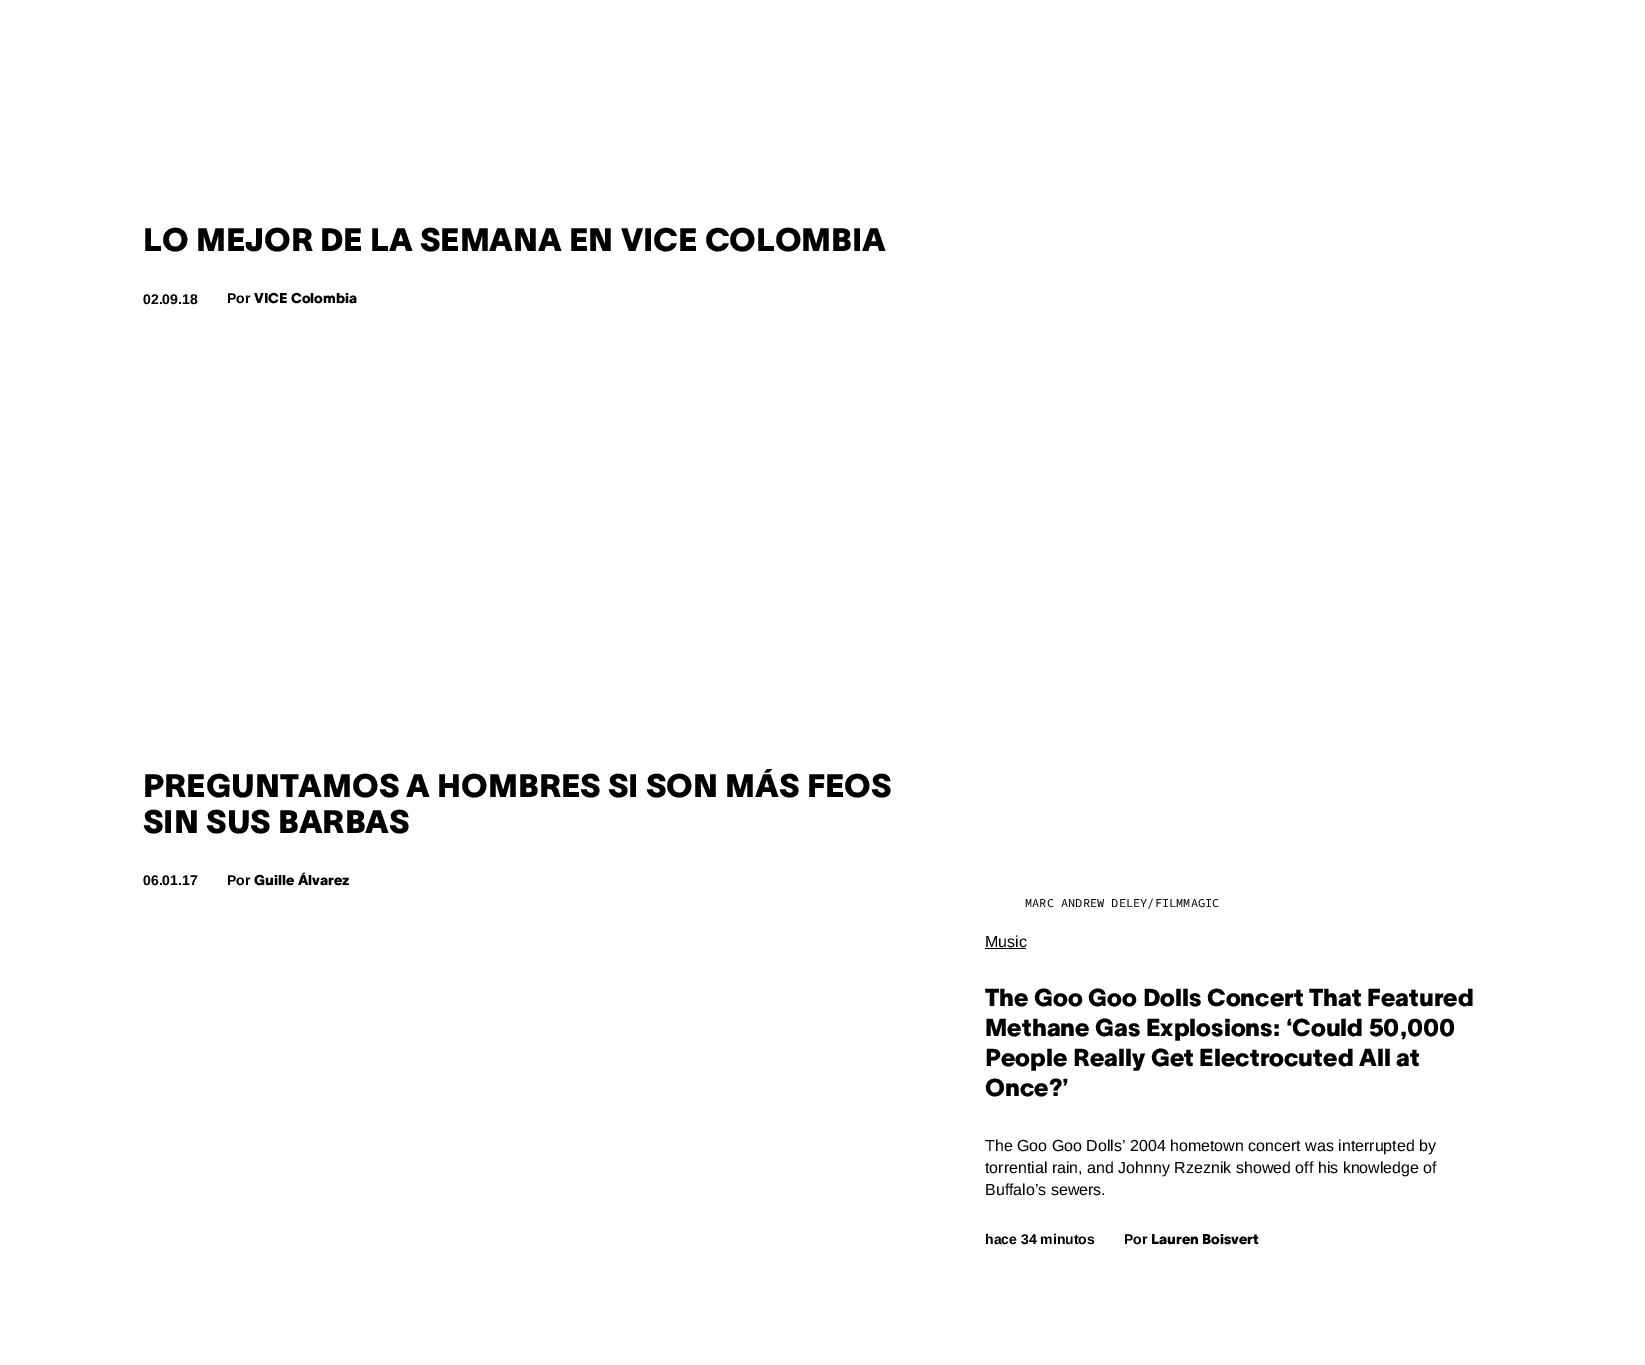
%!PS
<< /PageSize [1645 1365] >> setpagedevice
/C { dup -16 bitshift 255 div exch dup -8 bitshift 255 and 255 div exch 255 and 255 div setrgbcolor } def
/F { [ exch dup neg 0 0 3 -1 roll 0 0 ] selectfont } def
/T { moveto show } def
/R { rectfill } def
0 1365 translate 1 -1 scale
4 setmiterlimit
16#FFFFFF C
0 0 1645 1365 R
/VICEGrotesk-Black 32 F
16#000000 C
(LO MEJOR DE LA SEMANA EN VICE COLOMBIA) 143 251 T
/LiberationSans-Bold 14 F
(02.09.18) 143 304 T
(Por) 227 303 T
/VICEGrotesk-Black 14 F
(VICE Colombia) 254 303 T
/VICEGrotesk-Black 32 F
(PREGUNTAMOS A HOMBRES SI SON MÁS FEOS) 143 797 T
(SIN SUS BARBAS) 143 833 T
/LiberationSans-Bold 14 F
(06.01.17) 143 885 T
(Por) 227 885 T
/VICEGrotesk-Black 14 F
(Guille Álvarez) 254 885 T
/SourceCodePro-Regular 12 F
(MARC ANDREW DELEY/FILMMAGIC) 1025 907 T
/LiberationSans-Regular 16 F
(Music) 985 947 T
985 948 41 1 R
/VICEGrotesk-Black 24 F
(The Goo Goo Dolls Concert That Featured) 985 1006 T
(Methane Gas Explosions: ‘Could 50,000) 985 1036 T
(People Really Get Electrocuted All at) 985 1066 T
(Once?’) 985 1096 T
/LiberationSans-Regular 16 F
(The Goo Goo Dolls’ 2004 hometown concert was interrupted by) 985 1151 T
(torrential rain, and Johnny Rzeznik showed off his knowledge of) 985 1173 T
(Buffalo’s sewers.) 985 1195 T
/LiberationSans-Bold 14 F
(hace 34 minutos) 985 1244 T
(Por) 1124 1244 T
/VICEGrotesk-Black 14 F
(Lauren Boisvert) 1151 1244 T
showpage
